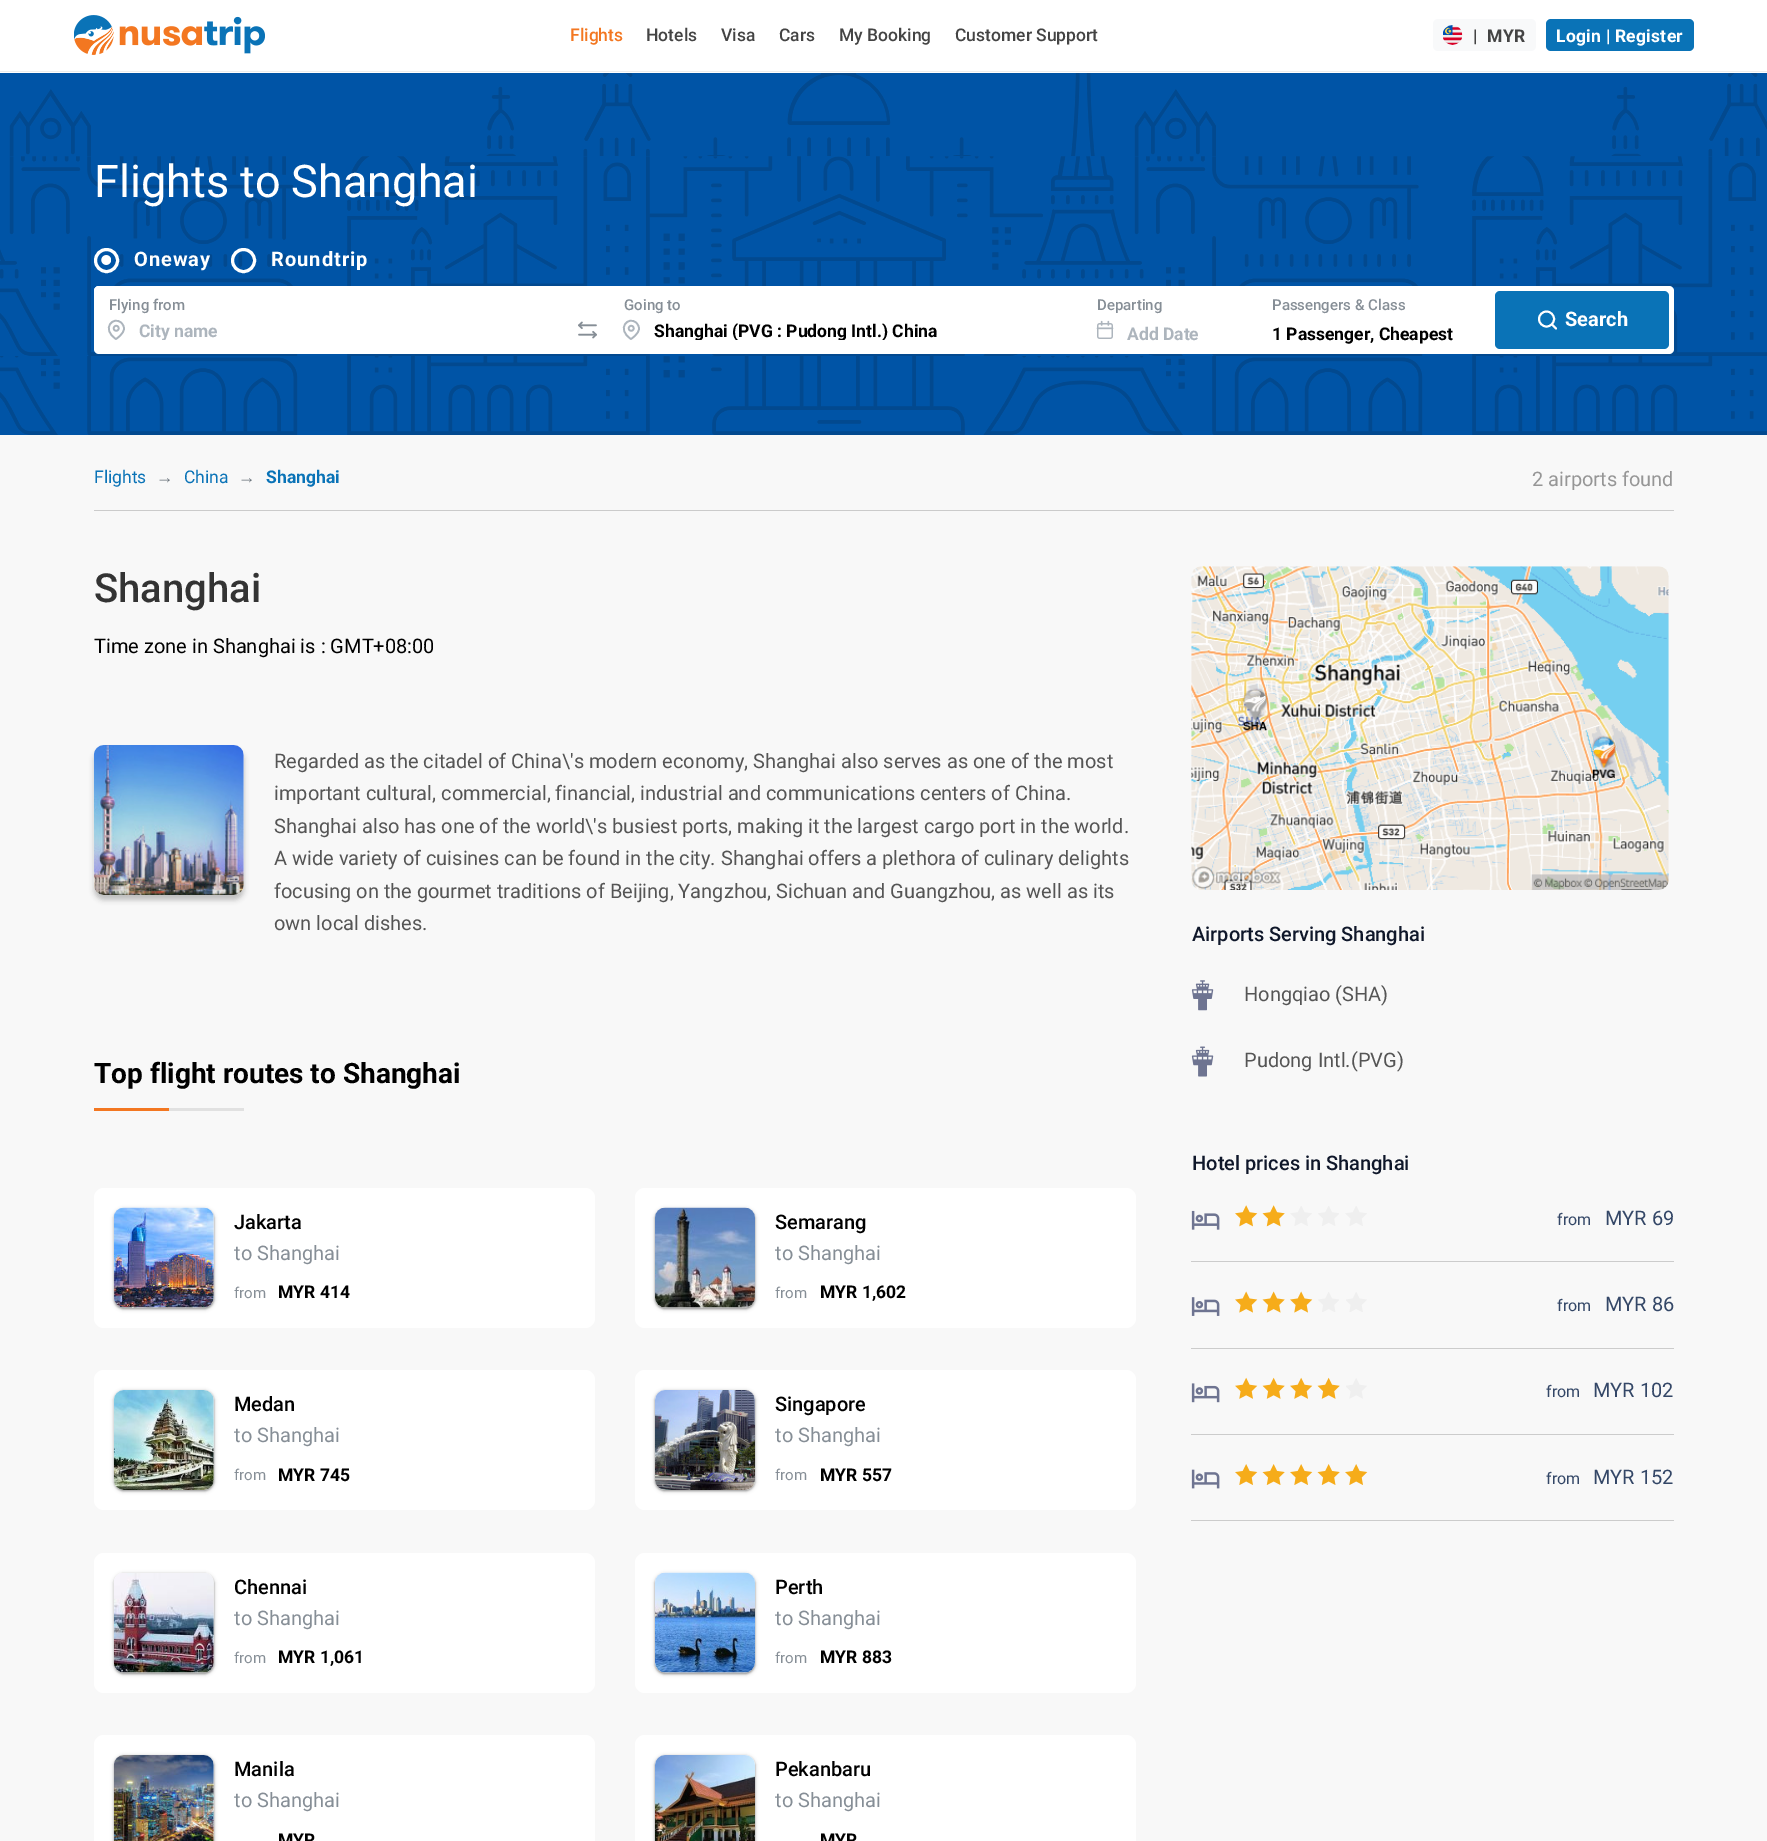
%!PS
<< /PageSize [1767 1841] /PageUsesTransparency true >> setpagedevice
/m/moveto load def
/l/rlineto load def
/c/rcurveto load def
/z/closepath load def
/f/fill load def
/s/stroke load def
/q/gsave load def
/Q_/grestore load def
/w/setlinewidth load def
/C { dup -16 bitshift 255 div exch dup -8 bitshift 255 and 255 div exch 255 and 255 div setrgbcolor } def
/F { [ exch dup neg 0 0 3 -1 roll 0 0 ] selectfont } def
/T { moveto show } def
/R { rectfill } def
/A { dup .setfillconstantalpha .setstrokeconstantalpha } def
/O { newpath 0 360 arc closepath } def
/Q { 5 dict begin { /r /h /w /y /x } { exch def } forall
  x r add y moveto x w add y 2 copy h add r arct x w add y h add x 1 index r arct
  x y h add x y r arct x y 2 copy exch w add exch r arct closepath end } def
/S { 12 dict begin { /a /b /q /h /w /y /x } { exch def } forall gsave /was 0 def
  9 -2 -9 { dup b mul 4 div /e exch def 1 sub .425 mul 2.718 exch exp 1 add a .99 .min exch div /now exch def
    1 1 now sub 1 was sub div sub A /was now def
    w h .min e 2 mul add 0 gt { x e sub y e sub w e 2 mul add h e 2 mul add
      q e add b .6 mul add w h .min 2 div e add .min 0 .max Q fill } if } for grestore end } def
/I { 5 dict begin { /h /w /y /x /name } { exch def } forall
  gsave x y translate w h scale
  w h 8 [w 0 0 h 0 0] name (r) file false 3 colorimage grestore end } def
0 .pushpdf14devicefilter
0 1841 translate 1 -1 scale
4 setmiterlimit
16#F8F8F8 C
0 0 1767 1841 R
16#FFFFFF C
0 0 1767 73 R
16#EDEDED C
0 71 1767 1 R
(1.rgb) 74 15 191 40 I
/Roboto-Medium 17.5 F
16#F37721 C
(Flights) 570 41 T
16#444444 C
(Hotels) 646 41 T
(Visa) 721 41 T
(Cars) 779 41 T
(My Booking) 839 41 T
(Customer Support) 955 41 T
16#F8F9FA C
1433 19 103 32 5 Q f
(2.rgb) 1443 25 20 20 I
/Roboto-Bold 17.5 F
16#444444 C
1473 42 m .25 0 (|) ashow
1487 42 m .25 0 (MYR) ashow
16#0A73B7 C
1546 19 148 32 5 Q f
16#FFFFFF C
1556 42 m .25 0 (Login | Register) ashow
16#0054A6 C
0 73 1767 362 R
(3.rgb) 0 73 1767 362 I
0 156 1767 200 R
(4.rgb) 0 156 1767 200 I
/Roboto-Regular 45 F
16#FFFFFF C
(Flights to Shanghai) 94 197 T
3 w
106.5 260.5 11 O s
(5.rgb) 101 255 10 10 I
/Roboto-Bold 20 F
134 266 m 1 0 (Oneway) ashow
243.5 260.5 11 O s
271 266 m 1 0 (Roundtrip) ashow
94 286 1580 68 5 Q f
94 286 472 60 5 Q f
/Roboto-Medium 15 F
16#868E96 C
(Flying from) 109 310 T
16#ADB5BD C
1.7 w
1 setlinecap
1 setlinejoin
124 328.5 m 0 5.5 -8 10.5 -8 10.5 c -15.5 -10 -2.5 -24 5.5 -16 c 1.5 1.5 2.5 3.5 2.5 5.5 c z s
0 setlinecap
0 setlinejoin
116.2 328.3 2.5 O s
q
139 320 395 20 rectclip
/Roboto-Bold 17.5 F
(City name) 139 337 T
Q_
(6.rgb) 578 321 19 18 I
16#868E96 C
(Going to) 624 310 T
16#ADB5BD C
1 setlinecap
1 setlinejoin
639 328.5 m 0 5.5 -8 10.5 -8 10.5 c -15.5 -10 -2.5 -24 5.5 -16 c 1.5 1.5 2.5 3.5 2.5 5.5 c z s
0 setlinecap
0 setlinejoin
631.2 328.3 2.5 O s
q
654 320 396 20 rectclip
/Roboto-Bold 17.5 F
16#000000 C
(Shanghai \(PVG : Pudong Intl.\) China) 654 337 T
Q_
16#868E96 C
(Departing) 1097 310 T
(7.rgb) 1096 320 18 19 I
/Roboto-Bold 17.5 F
16#ADB5BD C
(Add Date) 1127 340 T
/Roboto-Medium 15 F
16#868E96 C
(Passengers & Class) 1272 310 T
/Roboto-Bold 17.5 F
16#000000 C
(1 Passenger, Cheapest) 1272 340 T
16#0A73B7 C
1495 291 174 58 5 Q f
16#FFFFFF C
1.9 w
1546.5 319 7.5 O s
1 setlinecap
1 setlinejoin
1556 328.5 m -4 -4 l s
/Roboto-Bold 20 F
(Search) 1565 326 T
/Roboto-Regular 17.5 F
16#0A73B7 C
(Flights) 94 483 T
/LiberationSans-Regular 17.5 F
16#6C757D C
(→) 156 483 T
/Roboto-Regular 17.5 F
16#0A73B7 C
(China) 184 483 T
/LiberationSans-Bold 17.5 F
16#6C757D C
(→) 238 483 T
/Roboto-Bold 17.5 F
16#0A73B7 C
(Shanghai) 266 483 T
/Roboto-Regular 20 F
16#969696 C
(2 airports found) 1532 486 T
16#CBCBCB C
94 510 1580 1 R
/Roboto-Medium 40 F
16#333333 C
(Shanghai) 94 602 T
/Roboto-Regular 20 F
16#000000 C
(Time zone in Shanghai is : GMT+08:00) 94 653 T
16#1A1A1A C
94 750 150 150 10 2.5 .25 S
(8.rgb) 93 745 151 150 I
16#555555 C
(Regarded as the citadel of China\\'s modern economy, Shanghai also serves as one of the most) 274 768 T
(important cultural, commercial, financial, industrial and communications centers of China.) 274 800 T
(Shanghai also has one of the world\\'s busiest ports, making it the largest cargo port in the world.) 274 833 T
(A wide variety of cuisines can be found in the city. Shanghai offers a plethora of culinary delights) 274 865 T
(focusing on the gourmet traditions of Beijing, Yangzhou, Sichuan and Guangzhou, as well as its) 274 898 T
(own local dishes.) 274 930 T
/Roboto-Bold 28 F
16#000000 C
(Top flight routes to Shanghai) 94 1083 T
16#E1E1E1 C
169 1108 75 3 R
16#F37721 C
94 1108 75 3 R
16#FFFFFF C
94 1188 501 140 10 Q f
16#000000 C
114 1209 100 100 10 1 .3 S
114 1209 100 100 10 2 .2 S
(9.rgb) 113 1207 101 101 I
/Roboto-Medium 20 F
(Jakarta) 234 1229 T
/Roboto-Regular 20 F
16#868E96 C
(to Shanghai) 234 1260 T
/Roboto-Regular 15 F
(from) 234 1298 T
/Roboto-Bold 17.5 F
16#000000 C
(MYR 414) 278 1298 T
16#FFFFFF C
635 1188 501 140 10 Q f
16#000000 C
655 1209 100 100 10 1 .3 S
655 1209 100 100 10 2 .2 S
(10.rgb) 655 1207 100 101 I
/Roboto-Medium 20 F
(Semarang) 775 1229 T
/Roboto-Regular 20 F
16#868E96 C
(to Shanghai) 775 1260 T
/Roboto-Regular 15 F
(from) 775 1298 T
/Roboto-Bold 17.5 F
16#000000 C
(MYR 1,602) 820 1298 T
16#FFFFFF C
94 1370 501 140 10 Q f
16#000000 C
114 1391 100 100 10 1 .3 S
114 1391 100 100 10 2 .2 S
(11.rgb) 113 1390 101 100 I
/Roboto-Medium 20 F
(Medan) 234 1411 T
/Roboto-Regular 20 F
16#868E96 C
(to Shanghai) 234 1442 T
/Roboto-Regular 15 F
(from) 234 1480 T
/Roboto-Bold 17.5 F
16#000000 C
(MYR 745) 278 1481 T
16#FFFFFF C
635 1370 501 140 10 Q f
16#000000 C
655 1391 100 100 10 1 .3 S
655 1391 100 100 10 2 .2 S
(12.rgb) 655 1390 100 100 I
/Roboto-Medium 20 F
(Singapore) 775 1411 T
/Roboto-Regular 20 F
16#868E96 C
(to Shanghai) 775 1442 T
/Roboto-Regular 15 F
(from) 775 1480 T
/Roboto-Bold 17.5 F
16#000000 C
(MYR 557) 820 1481 T
16#FFFFFF C
94 1553 501 140 10 Q f
16#000000 C
114 1574 100 100 10 1 .3 S
114 1574 100 100 10 2 .2 S
(13.rgb) 113 1573 101 100 I
/Roboto-Medium 20 F
(Chennai) 234 1594 T
/Roboto-Regular 20 F
16#868E96 C
(to Shanghai) 234 1625 T
/Roboto-Regular 15 F
(from) 234 1663 T
/Roboto-Bold 17.5 F
16#000000 C
(MYR 1,061) 278 1663 T
16#FFFFFF C
635 1553 501 140 10 Q f
16#000000 C
655 1574 100 100 10 1 .3 S
655 1574 100 100 10 2 .2 S
(14.rgb) 655 1572 100 101 I
/Roboto-Medium 20 F
(Perth) 775 1594 T
/Roboto-Regular 20 F
16#868E96 C
(to Shanghai) 775 1625 T
/Roboto-Regular 15 F
(from) 775 1663 T
/Roboto-Bold 17.5 F
16#000000 C
(MYR 883) 820 1663 T
16#FFFFFF C
94 1735 501 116 10 Q f
16#000000 C
114 1756 100 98 10 1 .3 S
114 1756 100 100 10 2 .2 S
(15.rgb) 113 1755 101 86 I
/Roboto-Medium 20 F
(Manila) 234 1776 T
/Roboto-Regular 20 F
16#868E96 C
(to Shanghai) 234 1807 T
/Roboto-Bold 17.5 F
16#000000 C
(MYR) 278 1846 T
16#FFFFFF C
635 1735 501 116 10 Q f
16#000000 C
655 1756 100 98 10 1 .3 S
655 1756 100 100 10 2 .2 S
(16.rgb) 655 1755 100 86 I
/Roboto-Medium 20 F
(Pekanbaru) 775 1776 T
/Roboto-Regular 20 F
16#868E96 C
(to Shanghai) 775 1807 T
/Roboto-Bold 17.5 F
16#000000 C
(MYR) 820 1846 T
(17.rgb) 1191 566 478 324 I
/Roboto-Medium 20 F
16#0F172A C
(Airports Serving Shanghai) 1192 941 T
(18.rgb) 1191 980 23 31 I
/Roboto-Regular 20 F
16#555555 C
(Hongqiao \(SHA\)) 1244 1001 T
(19.rgb) 1191 1046 23 31 I
(Pudong Intl.\(PVG\)) 1244 1067 T
/Roboto-Medium 20 F
16#0F172A C
(Hotel prices in Shanghai) 1192 1170 T
16#CCCCCC C
1191 1261 483 1 R
(20.rgb) 1191 1210 29 20 I
(21.rgb) 1235 1205 23 22 I
(22.rgb) 1262 1205 23 22 I
(23.rgb) 1290 1206 22 20 I
(24.rgb) 1318 1206 21 20 I
(23.rgb) 1345 1206 22 20 I
/Roboto-Regular 16 F
16#344767 C
(from) 1557 1225 T
/Roboto-Regular 20 F
(MYR 69) 1605 1225 T
16#CCCCCC C
1191 1348 483 1 R
(25.rgb) 1191 1297 29 19 I
(26.rgb) 1235 1291 23 22 I
(27.rgb) 1262 1291 23 22 I
(26.rgb) 1290 1291 23 22 I
(28.rgb) 1318 1292 21 20 I
(29.rgb) 1346 1292 21 20 I
/Roboto-Regular 16 F
16#344767 C
(from) 1557 1311 T
/Roboto-Regular 20 F
(MYR 86) 1605 1311 T
16#CCCCCC C
1191 1434 483 1 R
(30.rgb) 1191 1383 29 20 I
(31.rgb) 1235 1377 23 22 I
(32.rgb) 1262 1377 23 22 I
(31.rgb) 1290 1377 23 22 I
(32.rgb) 1317 1377 23 22 I
(33.rgb) 1346 1378 21 21 I
/Roboto-Regular 16 F
16#344767 C
(from) 1546 1397 T
/Roboto-Regular 20 F
(MYR 102) 1593 1397 T
16#CCCCCC C
1191 1520 483 1 R
(34.rgb) 1191 1469 29 20 I
(35.rgb) 1235 1464 23 21 I
(36.rgb) 1262 1464 23 21 I
(35.rgb) 1290 1464 23 21 I
(36.rgb) 1317 1464 23 21 I
(35.rgb) 1345 1464 23 21 I
/Roboto-Regular 16 F
16#344767 C
(from) 1546 1484 T
/Roboto-Regular 20 F
(MYR 152) 1593 1484 T
.poppdf14devicefilter showpage
